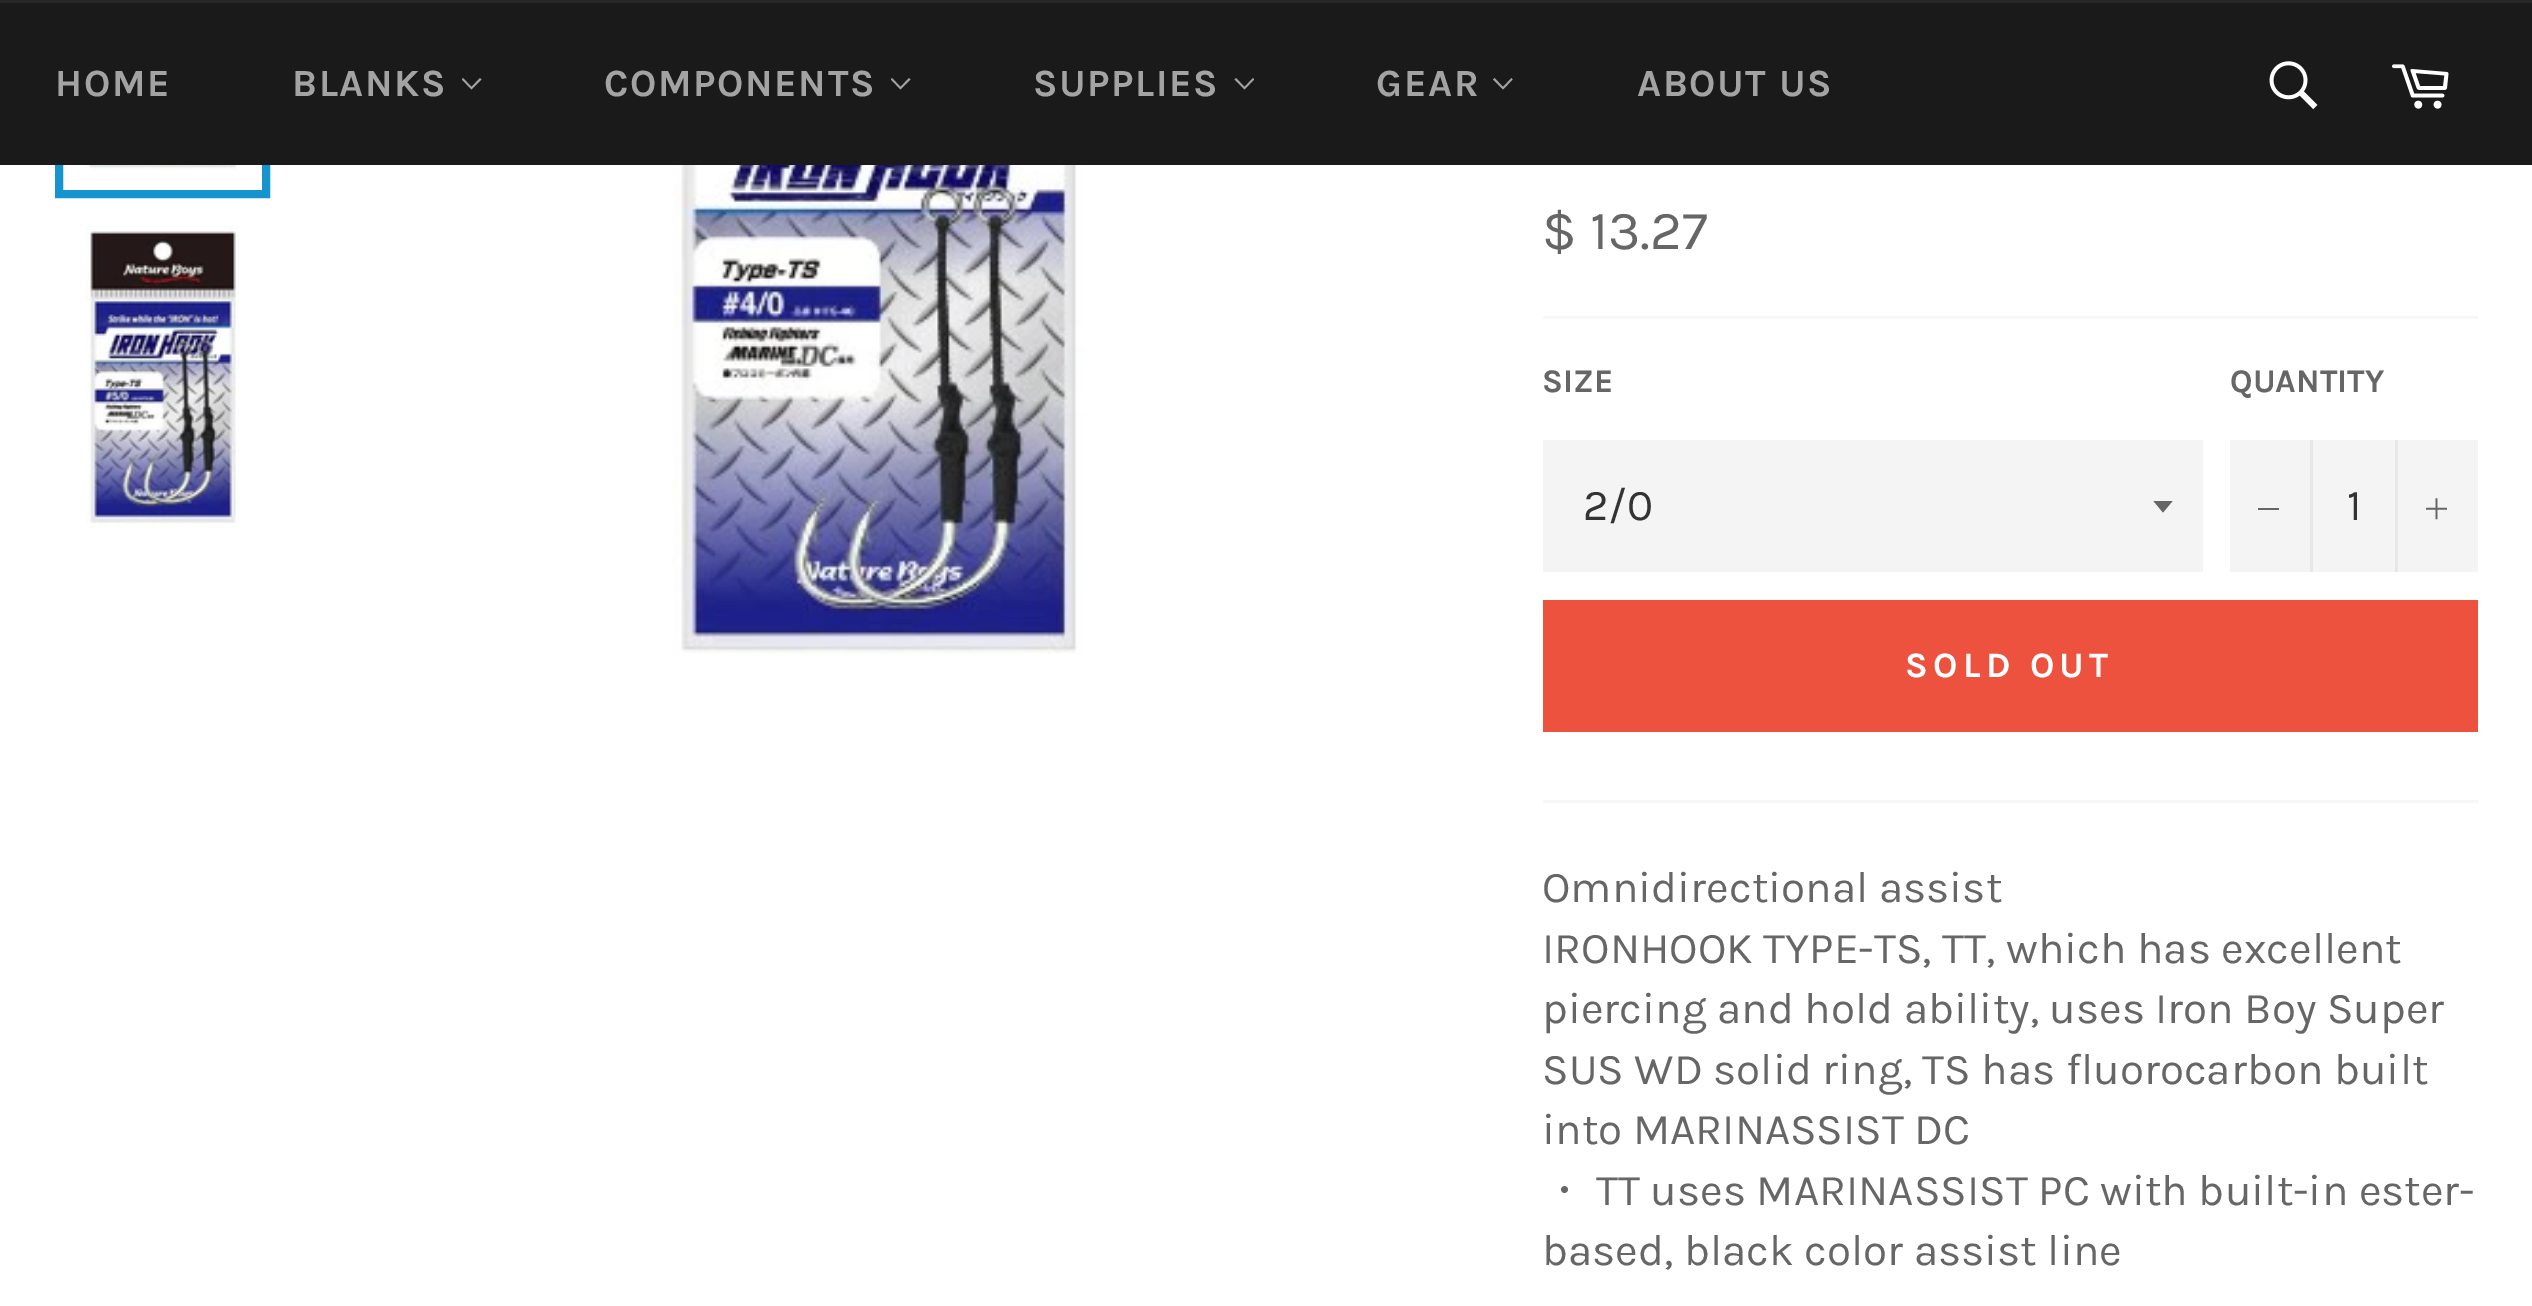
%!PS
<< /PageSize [2532 1306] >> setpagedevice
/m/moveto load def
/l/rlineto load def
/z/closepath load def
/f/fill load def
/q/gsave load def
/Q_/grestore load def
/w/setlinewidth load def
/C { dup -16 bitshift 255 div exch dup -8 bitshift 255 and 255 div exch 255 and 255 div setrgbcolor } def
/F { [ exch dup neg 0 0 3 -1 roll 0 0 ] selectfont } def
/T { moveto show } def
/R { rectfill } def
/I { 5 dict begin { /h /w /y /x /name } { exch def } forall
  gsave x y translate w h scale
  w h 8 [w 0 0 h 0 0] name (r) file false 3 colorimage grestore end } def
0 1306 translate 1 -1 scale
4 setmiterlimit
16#FFFFFF C
0 0 2532 1306 R
(3.rgb) 85 165 153 6 I
16#1594CF C
8 w
59 -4 207 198 rectstroke
16#1A1A1A C
0 3 2532 162 R
16#272727 C
0 0 2532 3 R
/Karla-Bold 38.5 F
16#A3A3A3 C
55 96 m 1.6 0 (HOME) ashow
292 96 m 1.6 0 (BLANKS) ashow
480 78 m 1.5 1.5 l -10 10 l -9.5 -10 l 1 -1.5 l 8.5 9 l z f
604 96 m 1.6 0 (COMPONENTS) ashow
909 78 m 1.5 1.5 l -10 10 l -9.5 -10 l 1 -1.5 l 8.5 9 l z f
1033 96 m 1.6 0 (SUPPLIES) ashow
1253 78 m 1 1.5 l -9.5 10 l -10 -10 l 1.5 -1.5 l 8.5 9 l z f
1376 96 m 1.6 0 (GEAR) ashow
1511.5 78 m 1 1.5 l -9.5 10 l -10 -10 l 1.5 -1.5 l 8.5 9 l z f
1637 96 m 1.6 0 (ABOUT US) ashow
(1.rgb) 2269 61 49 49 I
(2.rgb) 2392 64 57 45 I
(4.rgb) 85 226 154 302 I
(5.rgb) 671 165 415 490 I
/Karla-Regular 55 F
16#666666 C
($ 13.27) 1542 249 T
16#F7F7F7 C
1543 316 935 3 R
/Karla-Bold 33 F
16#666666 C
(SIZE) 1542 392 T
16#F4F4F4 C
1543 440 660 132 R
q
2153 501 22 13 rectclip
16#666666 C
2153 500.5 m 10 12 l 10 -12 l z f
Q_
/Karla-Regular 44 F
16#333333 C
(2/0) 1583 520 T
/Karla-Bold 33 F
16#666666 C
(QUANTITY) 2230 392 T
16#F4F4F4 C
2230 440 248 132 R
16#E7E7E7 C
2310 440 3 132 R
16#666666 C
2258 508 21 2 R
/Karla-Regular 44 F
16#333333 C
(1) 2347 520 T
16#E7E7E7 C
2395 440 3 132 R
(6.rgb) 2426 498 21 22 I
16#EC523E C
1543 600 935 132 R
/Karla-Bold 35.75 F
16#FFFFFF C
1905 677 m 5.25 0 (SOLD OUT) ashow
16#F7F7F7 C
1543 800 935 3 R
/Karla-Regular 44 F
16#666666 C
(Omnidirectional assist) 1542 902 T
(IRONHOOK TYPE-TS, TT, which has excellent) 1542 963 T
(piercing and hold ability, uses Iron Boy Super) 1542 1023 T
(SUS WD solid ring, TS has fluorocarbon built) 1542 1084 T
(into MARINASSIST DC) 1542 1144 T
/WenQuanYiZenHei-Medium 44 F
(・) 1542 1205 T
/Karla-Regular 44 F
(TT uses MARINASSIST PC with built-in ester-) 1596 1205 T
(based, black color assist line) 1542 1265 T
showpage
